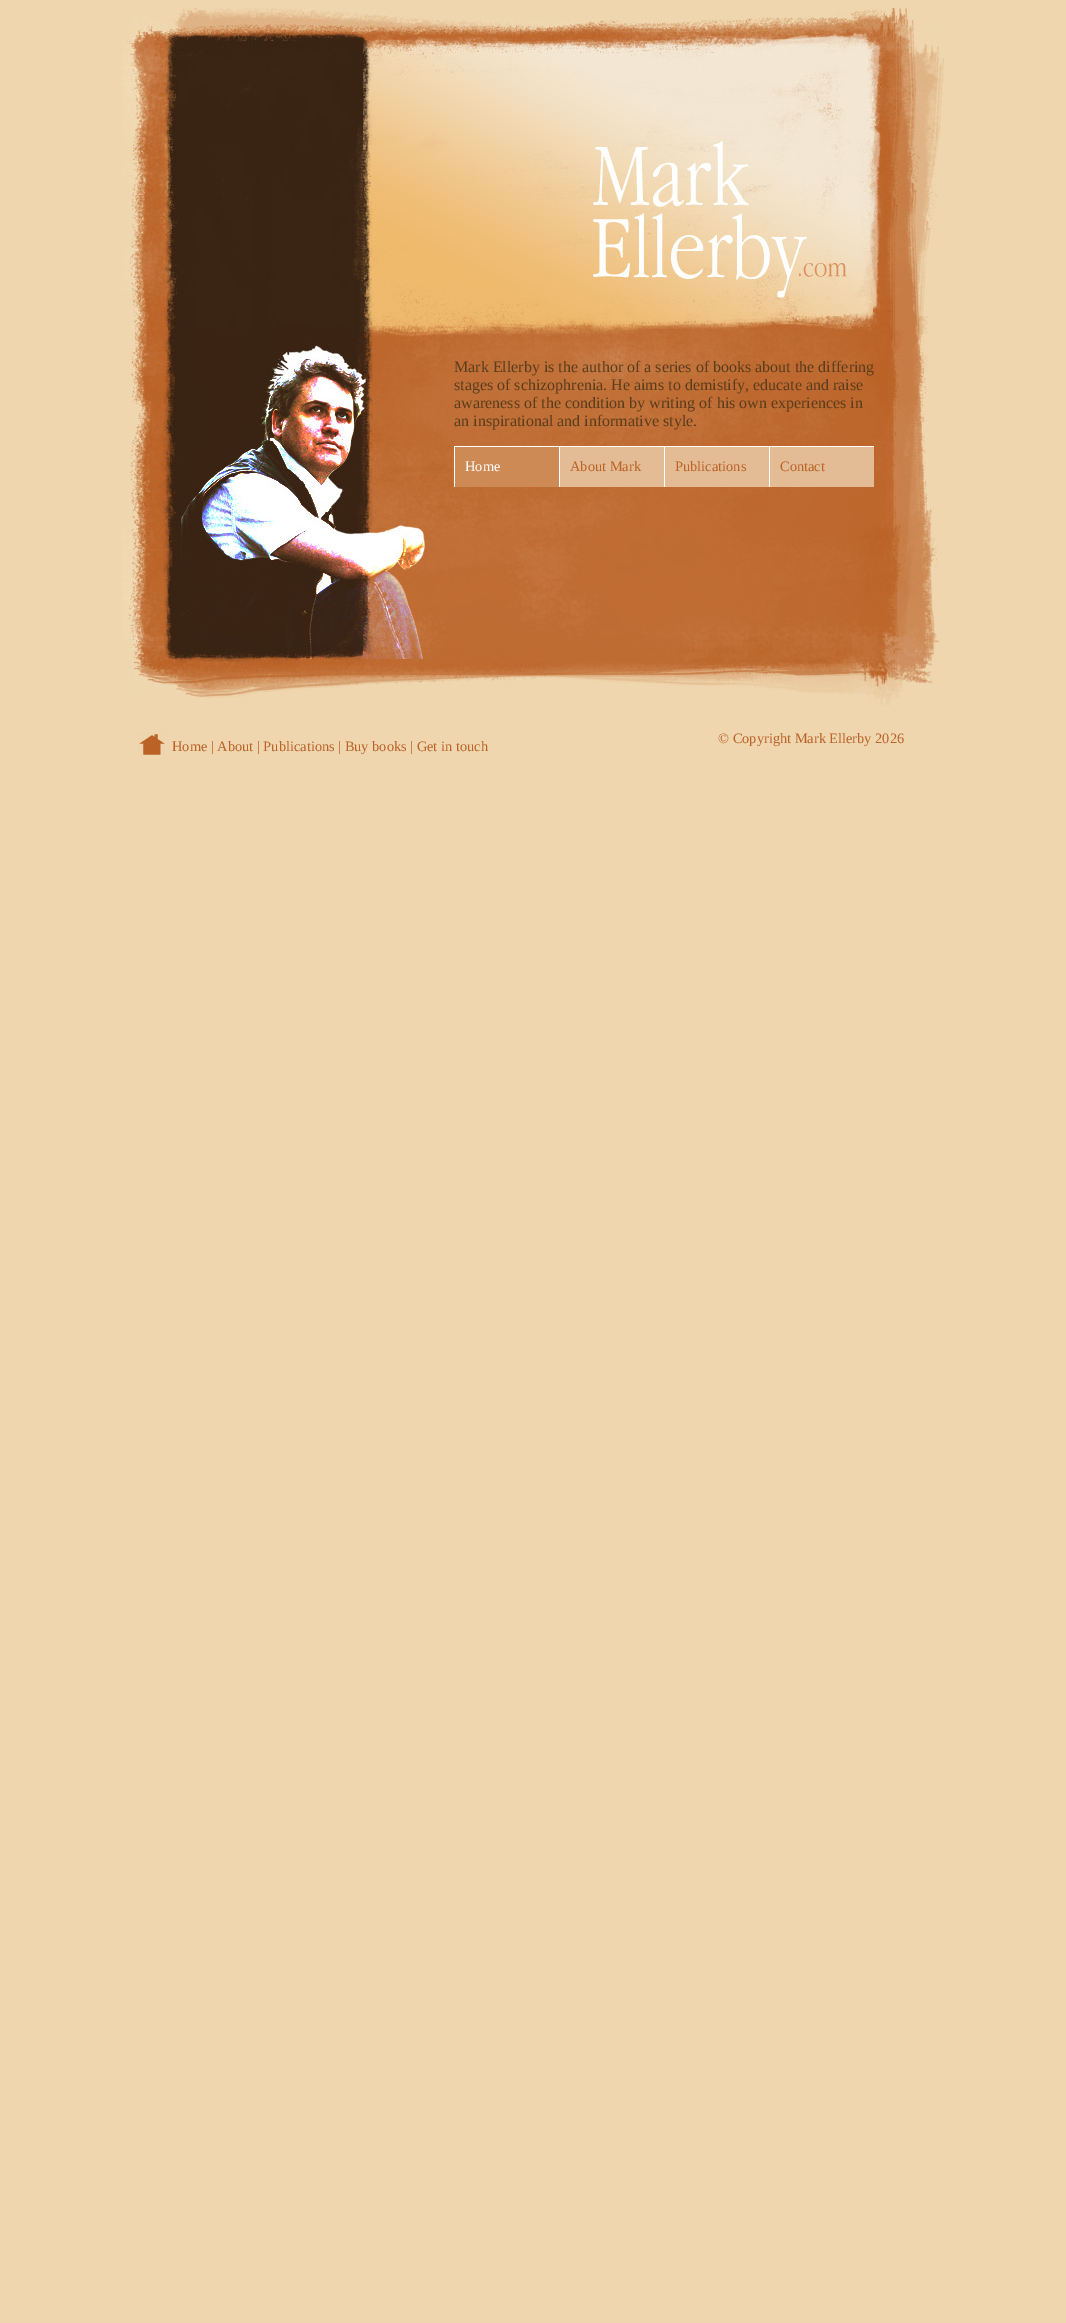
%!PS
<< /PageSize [1066 2323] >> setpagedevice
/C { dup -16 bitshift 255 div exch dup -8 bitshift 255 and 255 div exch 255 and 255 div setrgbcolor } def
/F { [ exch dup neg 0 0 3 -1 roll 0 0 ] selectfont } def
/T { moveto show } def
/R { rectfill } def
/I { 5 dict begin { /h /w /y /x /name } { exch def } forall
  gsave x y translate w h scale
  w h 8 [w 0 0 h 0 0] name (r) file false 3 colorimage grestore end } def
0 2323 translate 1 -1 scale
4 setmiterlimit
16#EFD6AF C
0 0 1066 2323 R
(1.rgb) 122 8 822 334 I
(2.rgb) 122 342 332 360 I
(3.rgb) 454 342 486 364 I
/LiberationSerif-Regular 16 F
16#5A3D1C C
(Mark Ellerby is the author of a series of books about the differing) 454 372 T
(stages of schizophrenia. He aims to demistify, educate and raise) 454 390 T
(awareness of the condition by writing of his own experiences in) 454 408 T
(an inspirational and informative style.) 454 426 T
16#CD8A55 C
455 447 104 40 R
16#FFFFFF C
454 446 420 1 R
454 446 1 41 R
/LiberationSerif-Regular 14.4 F
(Home) 465 471 T
16#E3BB95 C
560 447 104 40 R
16#FFFFFF C
559 446 1 41 R
16#BB6226 C
(About Mark) 570 471 T
16#E3BB95 C
665 447 104 40 R
16#FFFFFF C
664 446 1 41 R
16#BB6226 C
(Publications) 675 471 T
16#E3BB95 C
770 447 104 40 R
16#FFFFFF C
769 446 1 41 R
16#BB6226 C
(Contact) 780 471 T
(4.rgb) 138 732 27 24 I
(Home | About | Publications | Buy books | Get in touch) 172 751 T
(© Copyright Mark Ellerby 2026) 718 743 T
showpage
